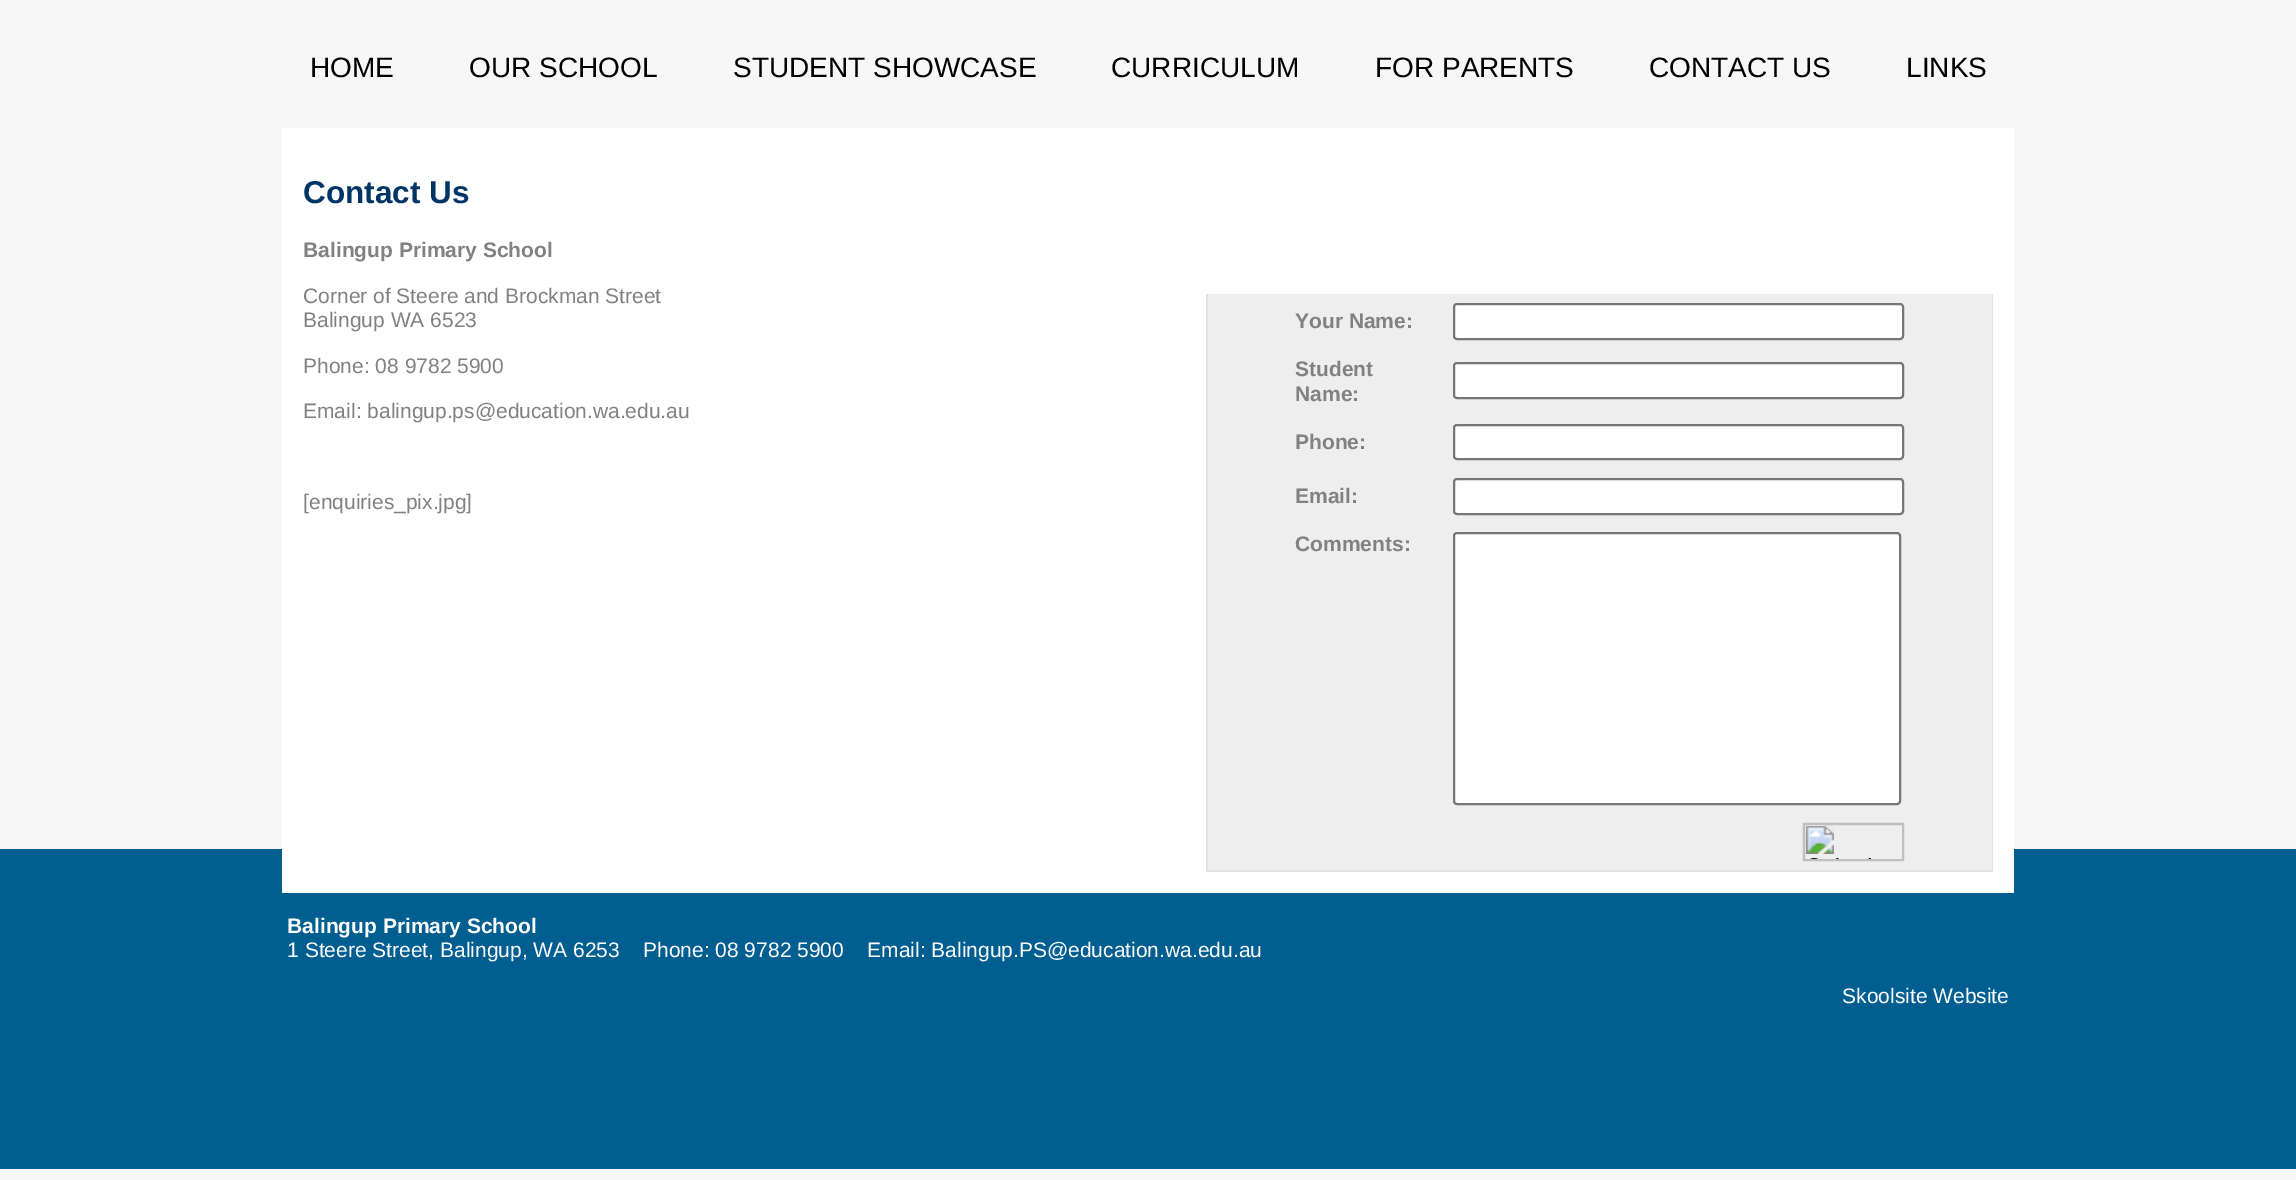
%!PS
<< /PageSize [2296 1180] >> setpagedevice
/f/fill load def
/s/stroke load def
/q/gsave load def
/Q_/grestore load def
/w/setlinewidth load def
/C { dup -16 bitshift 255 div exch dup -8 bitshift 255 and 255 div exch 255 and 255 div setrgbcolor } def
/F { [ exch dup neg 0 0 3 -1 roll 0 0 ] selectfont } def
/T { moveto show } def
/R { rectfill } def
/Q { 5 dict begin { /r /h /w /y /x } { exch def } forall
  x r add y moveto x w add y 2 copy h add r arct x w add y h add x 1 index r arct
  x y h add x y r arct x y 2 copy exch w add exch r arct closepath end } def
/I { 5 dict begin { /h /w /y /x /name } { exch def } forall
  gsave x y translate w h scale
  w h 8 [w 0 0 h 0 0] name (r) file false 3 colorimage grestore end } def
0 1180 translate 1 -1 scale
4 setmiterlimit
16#F7F7F7 C
0 0 2296 1180 R
/LiberationSans-Regular 28 F
16#000000 C
(HOME) 310 77 T
(OUR SCHOOL) 469 77 T
(STUDENT SHOWCASE) 733 77 T
(CURRICULUM) 1111 77 T
(FOR PARENTS) 1375 77 T
(CONTACT US) 1649 77 T
(LINKS) 1906 77 T
16#005E91 C
0 849 2296 320 R
16#FFFFFF C
282 128 1732 765 R
/LiberationSans-Bold 31.5 F
16#003565 C
(Contact Us) 303 203 T
/LiberationSans-Bold 21 F
16#818181 C
(Balingup Primary School) 303 257 T
/LiberationSans-Regular 21 F
(Corner of Steere and Brockman Street) 303 303 T
(Balingup WA 6523) 303 327 T
(Phone: 08 9782 5900) 303 373 T
(Email: balingup.ps@education.wa.edu.au) 303 418 T
([enquiries_pix.jpg]) 303 509 T
16#EEEEEE C
1208 294 784 576 R
16#E2E2E2 C
1992 294 1 578 R
1206 870 787 2 R
1206 294 2 578 R
/LiberationSans-Bold 21 F
16#818181 C
(Your Name:) 1295 328 T
16#FFFFFF C
1454 304 449 35 3 Q q f Q_
16#767676 C
2 w
s
16#818181 C
(Student) 1295 376 T
(Name:) 1295 401 T
16#FFFFFF C
1454 363 449 35 3 Q q f Q_
16#767676 C
s
16#818181 C
(Phone:) 1295 449 T
16#FFFFFF C
1454 425 449 34 3 Q q f Q_
16#767676 C
s
16#818181 C
(Email:) 1295 503 T
16#FFFFFF C
1454 479 449 35 3 Q q f Q_
16#767676 C
s
16#818181 C
(Comments:) 1295 551 T
16#FFFFFF C
1454 533 446 271 3 Q q f Q_
16#767676 C
s
(1.rgb) 1802 822 102 39 I
16#C0C0C0 C
1804 824 99 36 rectstroke
16#FFFFFF C
(Balingup Primary School) 287 933 T
/LiberationSans-Regular 21 F
(1 Steere Street, Balingup, WA 6253    Phone: 08 9782 5900    Email: Balingup.PS@education.wa.edu.au) 287 957 T
(Skoolsite Website) 1842 1003 T
showpage
